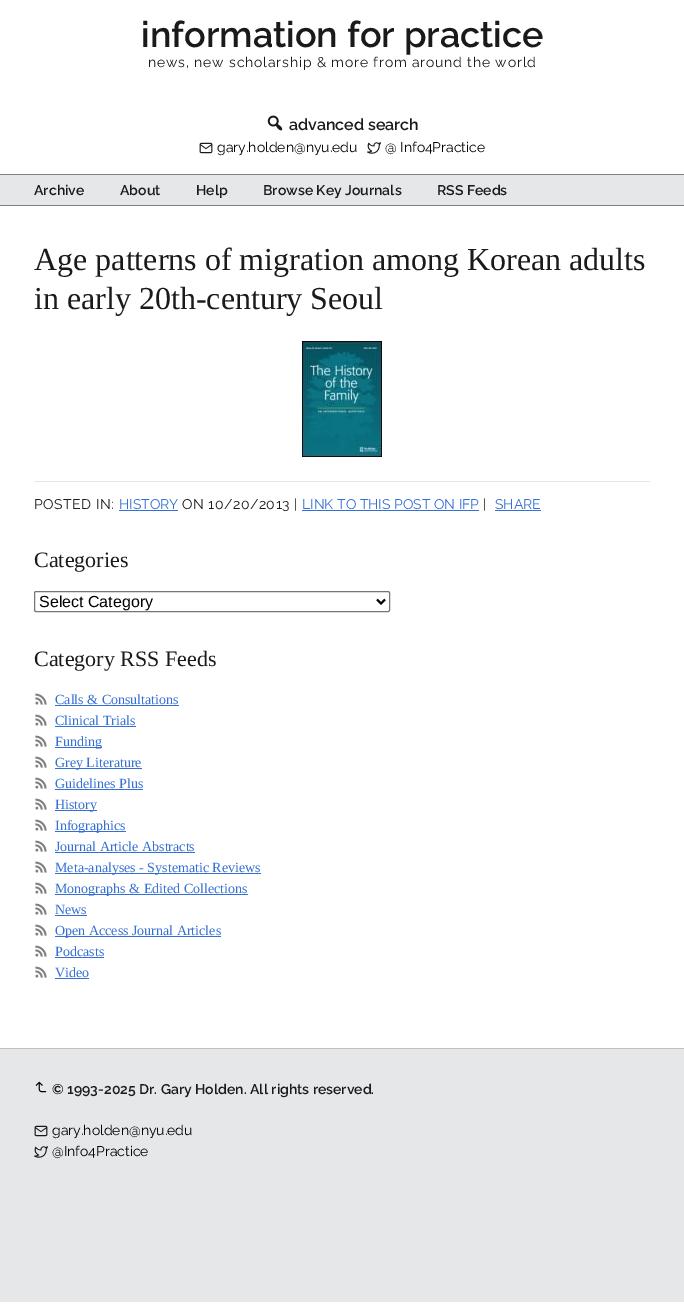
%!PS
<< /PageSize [684 1309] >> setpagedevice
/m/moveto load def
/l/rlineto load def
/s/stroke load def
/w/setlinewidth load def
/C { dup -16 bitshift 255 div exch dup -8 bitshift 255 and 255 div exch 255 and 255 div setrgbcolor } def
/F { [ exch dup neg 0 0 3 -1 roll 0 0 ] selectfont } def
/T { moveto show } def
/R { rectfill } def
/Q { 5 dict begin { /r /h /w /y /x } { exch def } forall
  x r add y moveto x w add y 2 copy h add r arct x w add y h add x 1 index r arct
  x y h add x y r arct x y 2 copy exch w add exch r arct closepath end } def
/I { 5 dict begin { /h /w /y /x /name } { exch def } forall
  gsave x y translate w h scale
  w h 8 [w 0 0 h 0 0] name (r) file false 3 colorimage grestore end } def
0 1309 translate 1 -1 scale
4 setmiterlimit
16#FFFFFF C
0 0 684 1309 R
/Raleway-SemiBold 36 F
16#1A1A1A C
(information for practice) 141 47 T
/Raleway-Regular 14 F
148 67 m .85 0 (news, new scholarship & more from around the world) ashow
(1.rgb) 267 115 16 16 I
/Raleway-SemiBold 16 F
(advanced search) 289 130 T
(2.rgb) 199 142 14 12 I
/Raleway-Regular 14 F
16#000000 C
(gary.holden@nyu.edu) 217 152 T
(3.rgb) 367 142 14 12 I
(@ Info4Practice) 385 152 T
16#E6E7E8 C
0 175 684 30 R
16#808080 C
0 174 684 1 R
0 205 684 1 R
/Raleway-SemiBold 14 F
16#1A1A1A C
(Archive) 34 195 T
(About) 120 195 T
(Help) 196 195 T
(Browse Key Journals) 263 195 T
(RSS Feeds) 437 195 T
/LiberationSerif-Regular 32 F
(Age patterns of migration among Korean adults) 34 270 T
(in early 20th-century Seoul) 34 309 T
(4.rgb) 302 341 80 116 I
16#E6E7E8 C
34 481 616 1 R
/Raleway-Regular 14 F
16#1A1A1A C
34 509 m .5 0 (POSTED IN:) ashow
16#336FD5 C
(HISTORY) 119 509 T
119 510 59 1 R
16#1A1A1A C
182 509 m .5 0 (ON 10/20/2013 |) ashow
16#336FD5 C
(LINK TO THIS POST ON IFP) 302 509 T
302 510 177 1 R
16#1A1A1A C
483 509 m .5 0 (|) ashow
16#336FD5 C
(SHARE) 495 509 T
495 510 46 1 R
/LiberationSerif-Regular 22 F
16#1A1A1A C
(Categories) 34 567 T
16#767676 C
34.5 591.5 355 20 1.5 Q s
16#000000 C
2 w
377 599.5 m 4 4 l 4 -4 l s
/LiberationSans-Regular 16 F
(Select Category) 39 607 T
/LiberationSerif-Regular 22 F
16#1A1A1A C
(Category RSS Feeds) 34 666 T
(5.rgb) 35 693 12 12 I
/LiberationSerif-Regular 14 F
16#336FD5 C
(Calls & Consultations) 55 704 T
55 705 124 1 R
(5.rgb) 35 714 12 12 I
(Clinical Trials) 55 725 T
55 726 81 1 R
(5.rgb) 35 735 12 12 I
55 747 47 1 R
(Funding) 55 746 T
(5.rgb) 35 756 12 12 I
55 768 87 1 R
(Grey Literature) 55 767 T
(5.rgb) 35 777 12 12 I
(Guidelines Plus) 55 788 T
55 789 88 1 R
(5.rgb) 35 798 12 12 I
55 810 42 1 R
(History) 55 809 T
(5.rgb) 35 819 12 12 I
55 831 71 1 R
(Infographics) 55 830 T
(5.rgb) 35 840 12 12 I
(Journal Article Abstracts) 55 851 T
55 852 140 1 R
(5.rgb) 35 861 12 12 I
55 873 206 1 R
(Meta-analyses - Systematic Reviews) 55 872 T
(5.rgb) 35 882 12 12 I
55 894 193 1 R
(Monographs & Edited Collections) 55 893 T
(5.rgb) 35 903 12 12 I
(News) 55 914 T
55 915 32 1 R
(5.rgb) 35 924 12 12 I
55 936 166 1 R
(Open Access Journal Articles) 55 935 T
(5.rgb) 35 945 12 12 I
(Podcasts) 55 956 T
55 957 49 1 R
(5.rgb) 35 966 12 12 I
(Video) 55 977 T
55 978 34 1 R
16#E6E7E8 C
0 1049 684 253 R
16#C0C0C0 C
0 1048 684 1 R
(6.rgb) 35 1081 12 12 I
/Raleway-SemiBold 14 F
16#1A1A1A C
(© 1993-2025 Dr. Gary Holden. All rights reserved.) 52 1094 T
(7.rgb) 34 1125 14 12 I
/Raleway-Regular 14 F
16#000000 C
(gary.holden@nyu.edu) 52 1135 T
(8.rgb) 34 1146 14 12 I
(@Info4Practice) 52 1156 T
showpage
